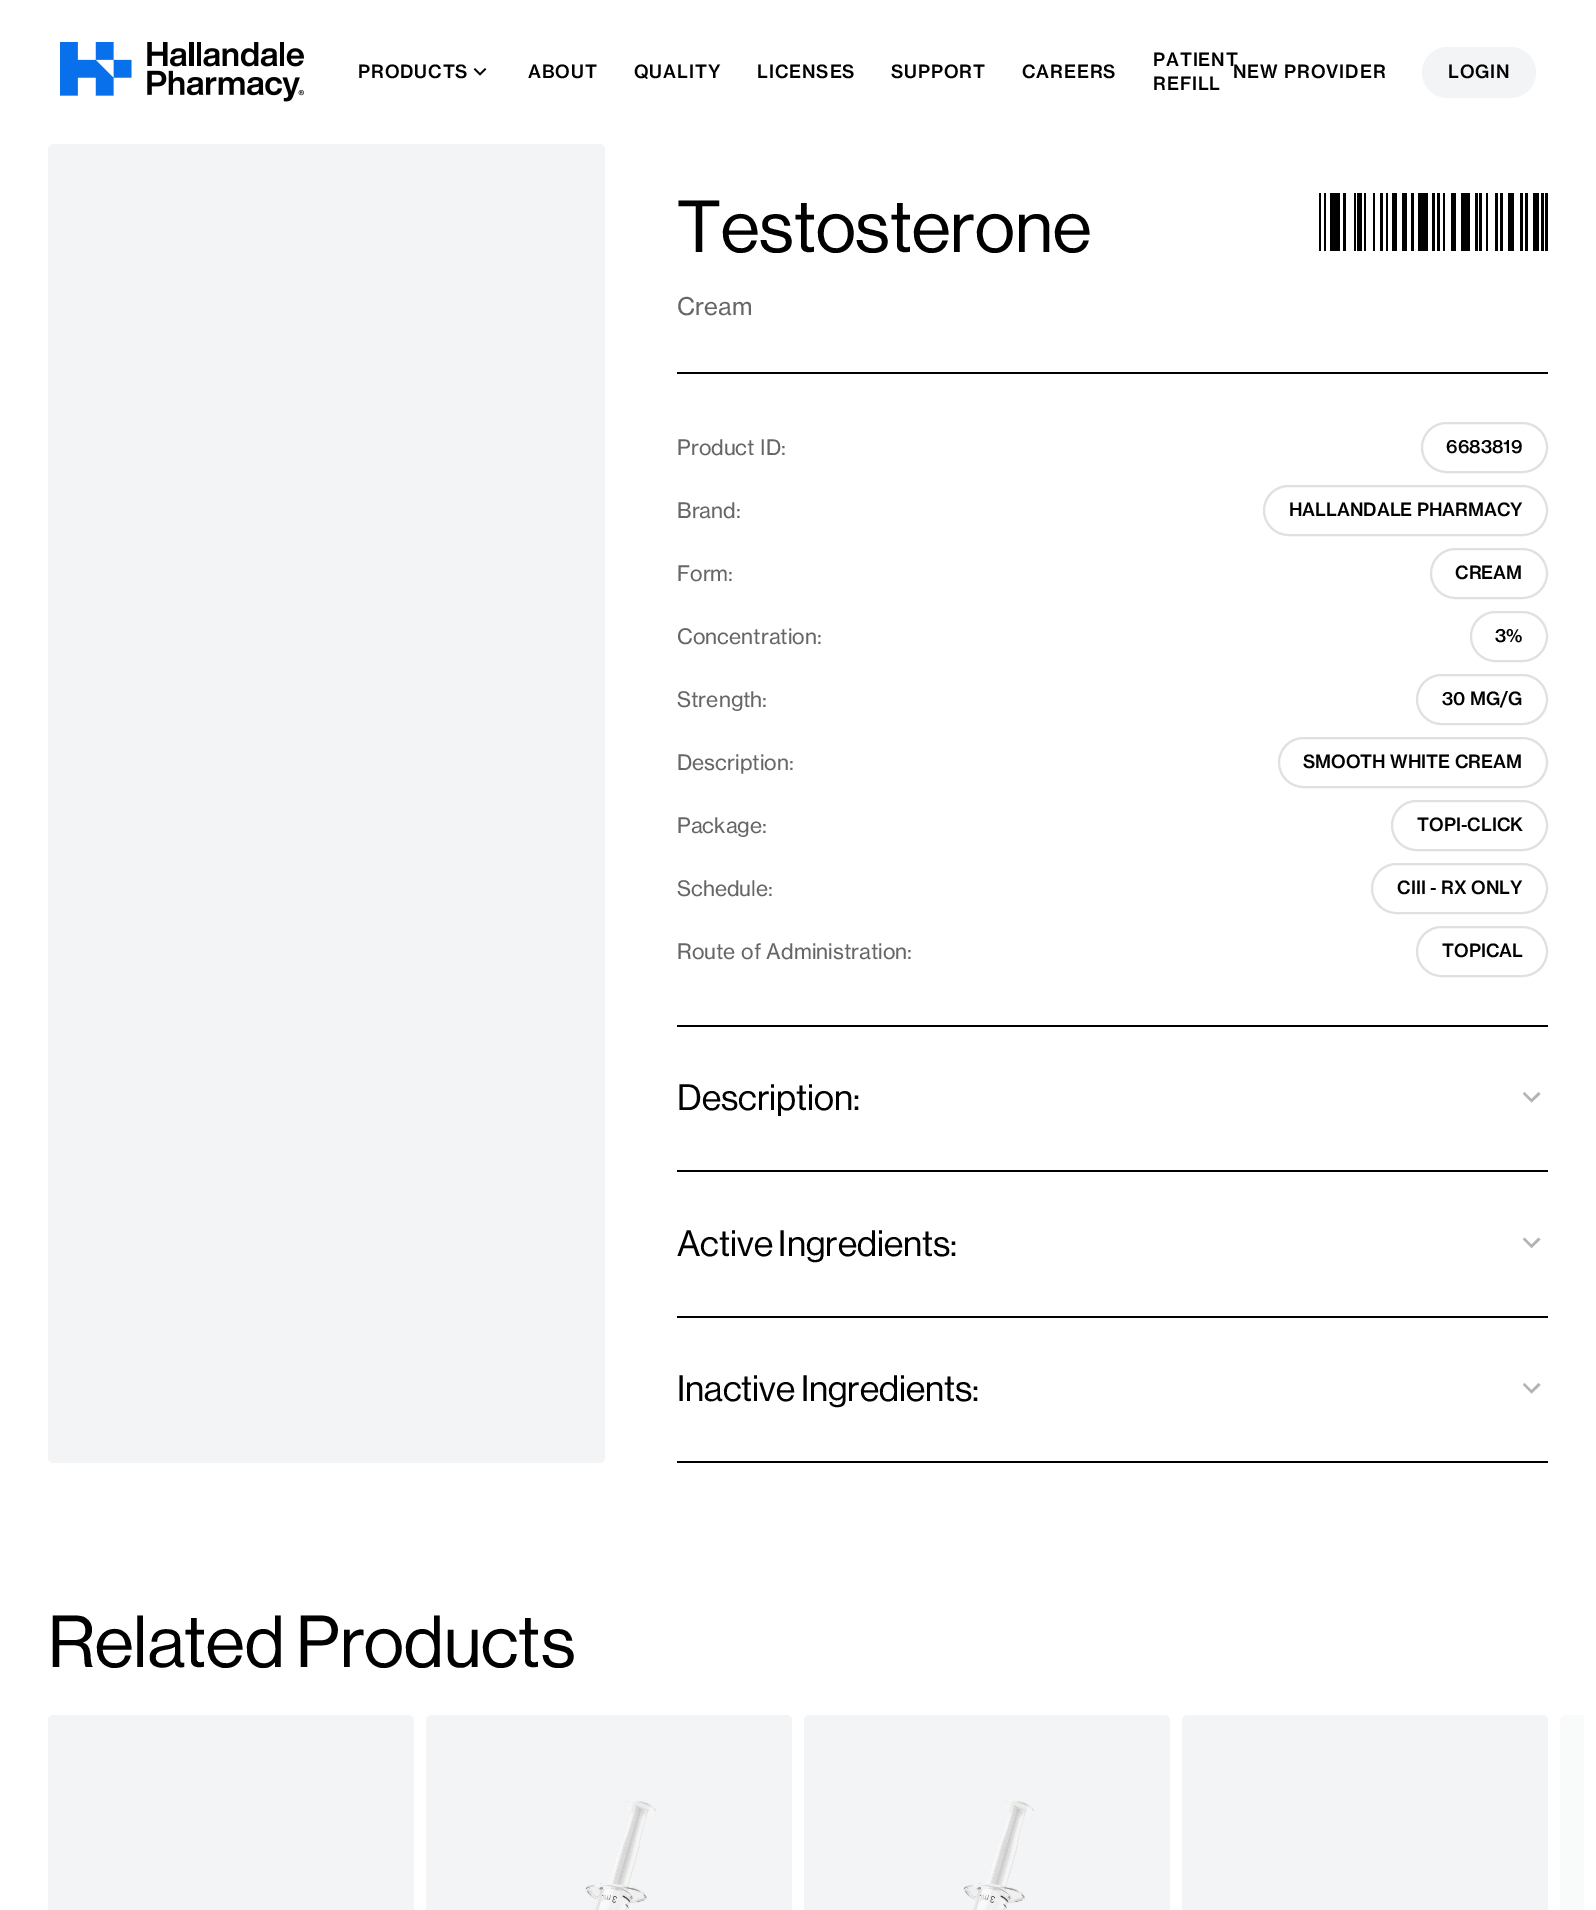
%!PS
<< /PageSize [1596 1910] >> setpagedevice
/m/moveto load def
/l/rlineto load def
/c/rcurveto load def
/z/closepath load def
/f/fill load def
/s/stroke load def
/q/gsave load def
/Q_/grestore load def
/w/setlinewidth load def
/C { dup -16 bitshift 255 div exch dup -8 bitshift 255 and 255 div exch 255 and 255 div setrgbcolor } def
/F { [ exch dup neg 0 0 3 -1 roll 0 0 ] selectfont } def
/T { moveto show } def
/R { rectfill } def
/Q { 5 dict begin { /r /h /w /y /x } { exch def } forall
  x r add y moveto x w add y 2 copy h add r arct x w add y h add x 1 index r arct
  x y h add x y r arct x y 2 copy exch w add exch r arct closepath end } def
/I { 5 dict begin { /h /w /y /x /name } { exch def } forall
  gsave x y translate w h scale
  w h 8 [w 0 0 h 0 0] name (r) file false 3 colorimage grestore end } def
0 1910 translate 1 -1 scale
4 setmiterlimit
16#FFFFFF C
0 0 1596 1910 R
(1.rgb) 60 42 244 60 I
/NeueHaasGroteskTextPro-Medium 18 F
16#000000 C
358 78 m .9 0 (PRODUCTS) ashow
(2.rgb) 473 68 14 8 I
528 78 m .9 0 (ABOUT) ashow
634 78 m .9 0 (QUALITY) ashow
757 78 m .9 0 (LICENSES) ashow
891 78 m .9 0 (SUPPORT) ashow
1022 78 m .9 0 (CAREERS) ashow
1153 66 m .9 0 (PATIENT) ashow
1153 90 m .9 0 (REFILL) ashow
1233 78 m .9 0 (NEW PROVIDER) ashow
16#F3F4F5 C
1423 48 112 49 24.5 Q q f Q_
2 w
s
16#000000 C
1448 78 m .9 0 (LOGIN) ashow
16#F3F4F5 C
48 144 557 1319 6 Q f
16#000000 C
677 372 871 2 R
/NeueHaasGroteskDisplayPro-Medium 72 F
(Testosterone) 677 252 T
/NeueHaasGroteskTextPro-Regular 24 F
16#666666 C
(Cream) 677 315 T
(3.rgb) 1319 193 229 58 I
16#000000 C
677 1025 871 2 R
/NeueHaasGroteskTextPro-Regular 21 F
16#666666 C
(Product ID:) 677 455 T
16#E0E0E0 C
1422 423 125 49 24.5 Q s
/NeueHaasGroteskTextPro-Medium 18 F
16#000000 C
(6683819) 1446 453 T
/NeueHaasGroteskTextPro-Regular 21 F
16#666666 C
(Brand:) 677 518 T
16#E0E0E0 C
1264 486 283 49 24.5 Q s
/NeueHaasGroteskTextPro-Medium 18 F
16#000000 C
(HALLANDALE PHARMACY) 1289 516 T
/NeueHaasGroteskTextPro-Regular 21 F
16#666666 C
(Form:) 677 581 T
16#E0E0E0 C
1431 549 116 49 24.5 Q s
/NeueHaasGroteskTextPro-Medium 18 F
16#000000 C
(CREAM) 1455 579 T
/NeueHaasGroteskTextPro-Regular 21 F
16#666666 C
(Concentration:) 677 644 T
16#E0E0E0 C
1471 612 76 49 24.5 Q s
/NeueHaasGroteskTextPro-Medium 18 F
16#000000 C
(3%) 1495 642 T
/NeueHaasGroteskTextPro-Regular 21 F
16#666666 C
(Strength:) 677 707 T
16#E0E0E0 C
1417 675 130 49 24.5 Q s
/NeueHaasGroteskTextPro-Medium 18 F
16#000000 C
(30 MG/G) 1442 705 T
/NeueHaasGroteskTextPro-Regular 21 F
16#666666 C
(Description:) 677 770 T
16#E0E0E0 C
1279 738 268 49 24.5 Q s
/NeueHaasGroteskTextPro-Medium 18 F
16#000000 C
(SMOOTH WHITE CREAM) 1303 768 T
/NeueHaasGroteskTextPro-Regular 21 F
16#666666 C
(Package:) 677 833 T
16#E0E0E0 C
1392 801 155 49 24.5 Q s
/NeueHaasGroteskTextPro-Medium 18 F
16#000000 C
(TOPI-CLICK) 1417 831 T
/NeueHaasGroteskTextPro-Regular 21 F
16#666666 C
(Schedule:) 677 896 T
16#E0E0E0 C
1372 864 175 49 24.5 Q s
/NeueHaasGroteskTextPro-Medium 18 F
16#000000 C
(CIII - RX ONLY) 1397 894 T
/NeueHaasGroteskTextPro-Regular 21 F
16#666666 C
(Route of Administration:) 677 959 T
16#E0E0E0 C
1417 927 130 49 24.5 Q s
/NeueHaasGroteskTextPro-Medium 18 F
16#000000 C
(TOPICAL) 1442 957 T
677 1170 871 2 R
/NeueHaasGroteskDisplayPro-Medium 36 F
(Description:) 677 1110 T
16#B3B3B3 C
1531.5 1099 m -7 -7 l -1.5 2 l 8.5 8.5 l 9 -8.5 l -2 -2 l z f
16#000000 C
677 1316 871 2 R
(Active Ingredients:) 677 1256 T
16#B3B3B3 C
1531.5 1244.5 m -7 -7 l -1.5 2 l 8.5 8.5 l 9 -8.5 l -2 -2 l z f
16#000000 C
677 1461 871 2 R
(Inactive Ingredients:) 677 1401 T
16#B3B3B3 C
1531.5 1390 m -7 -7 l -1.5 2 l 8.5 8.5 l 9 -8.5 l -2 -2 l z f
/NeueHaasGroteskDisplayPro-Medium 72 F
16#000000 C
(Related Products) 48 1667 T
16#F3F4F5 C
48 1715 366 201 6 Q f
426 1715 366 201 6 Q f
(4.rgb) 585 1800 71 110 I
804 1715 366 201 6 Q f
(4.rgb) 963 1800 71 110 I
1182 1715 366 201 6 Q f
16#F9FAFA C
1566 1715 m 18 0 l 0 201 l -18 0 l -3.5 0 -6 -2.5 -6 -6 c 0 -189 l 0 -3.5 2.5 -6 6 -6 c z f
showpage
